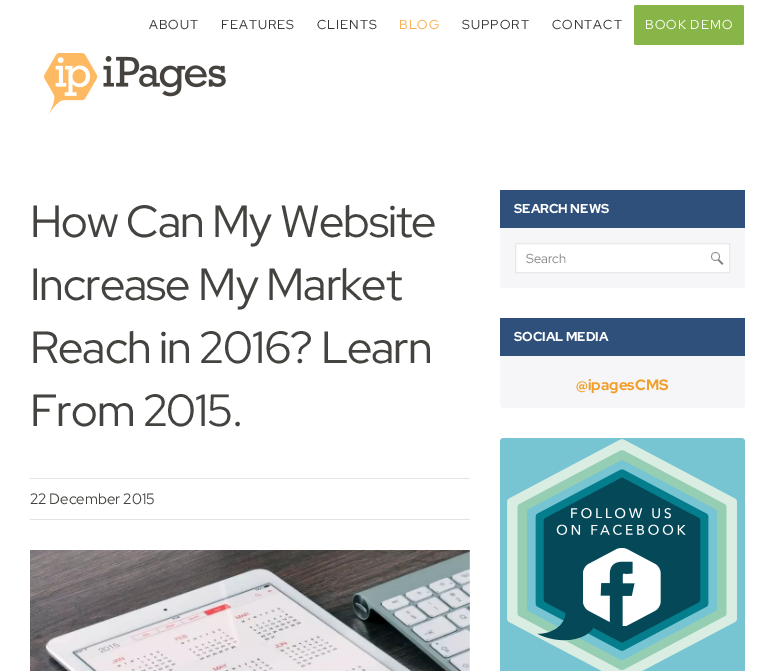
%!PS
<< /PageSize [775 671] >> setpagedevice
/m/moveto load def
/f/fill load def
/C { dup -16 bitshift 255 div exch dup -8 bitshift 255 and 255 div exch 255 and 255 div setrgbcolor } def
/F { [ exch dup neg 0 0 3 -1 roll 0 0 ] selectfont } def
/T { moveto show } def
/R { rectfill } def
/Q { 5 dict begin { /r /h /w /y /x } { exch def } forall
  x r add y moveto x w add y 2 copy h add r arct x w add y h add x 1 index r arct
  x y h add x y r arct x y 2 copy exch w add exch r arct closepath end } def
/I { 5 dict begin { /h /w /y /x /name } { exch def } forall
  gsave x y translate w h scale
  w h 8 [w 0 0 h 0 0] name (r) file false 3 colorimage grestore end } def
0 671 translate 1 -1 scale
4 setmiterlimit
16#FFFFFF C
0 0 775 671 R
/RedHatDisplay-Regular 13 F
16#363636 C
149 29 m 1 0 (ABOUT) ashow
221 29 m 1 0 (FEATURES) ashow
317 29 m 1 0 (CLIENTS) ashow
16#F9AC51 C
399 29 m 1 0 (BLOG) ashow
16#363636 C
462 29 m 1 0 (SUPPORT) ashow
552 29 m 1 0 (CONTACT) ashow
16#87B548 C
634 5 110 40 2 Q f
16#FFFFFF C
645 29 m 1 0 (BOOK DEMO) ashow
(1.rgb) 44 53 182 62 I
/RedHatDisplay-Regular 45 F
16#45433F C
30 237 m -1 0 (How Can My Website) ashow
30 300 m -1 0 (Increase My Market) ashow
30 363 m -1 0 (Reach in 2016? Learn) ashow
30 426 m -1 0 (From 2015.) ashow
16#E3E3E3 C
30 478 440 1 R
30 519 440 1 R
/RedHatDisplay-Regular 15 F
16#45433F C
(22 December 2015) 30 504 T
(2.rgb) 30 550 440 121 I
16#F6F6F9 C
500 228 245 60 R
16#2F507B C
500 190 245 38 R
/RedHatDisplay-Bold 13 F
16#FFFFFF C
(SEARCH NEWS) 514 213 T
516 244 213 28 R
(3.rgb) 711 252 13 13 I
16#E8E8E8 C
515.5 243.5 214 29 rectstroke
/RedHatDisplay-Regular 13 F
16#888888 C
(Search) 526 263 T
16#2F507B C
500 318 245 38 R
/RedHatDisplay-Bold 13 F
16#FFFFFF C
(SOCIAL MEDIA) 514 341 T
16#F6F6F9 C
500 356 245 52 4 Q f
/RedHatDisplay-Bold 15 F
16#F19F2A C
(@ipagesCMS) 576 390 T
(4.rgb) 500 438 245 233 I
(5.rgb) 583 548 78 78 I
showpage
